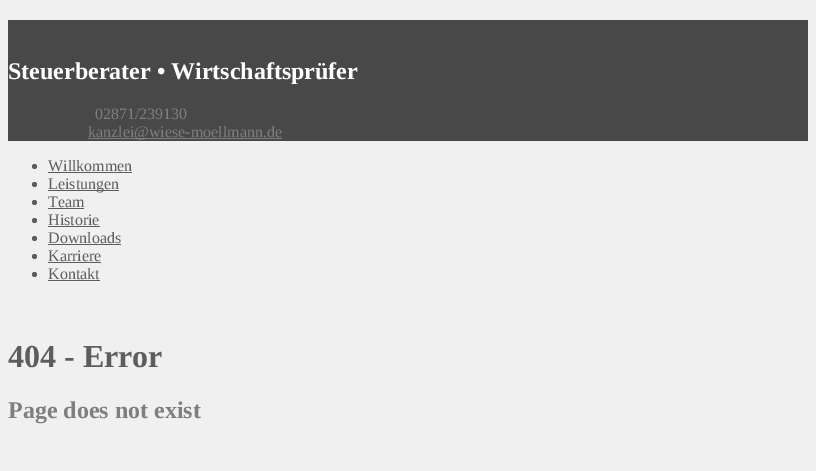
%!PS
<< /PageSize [816 471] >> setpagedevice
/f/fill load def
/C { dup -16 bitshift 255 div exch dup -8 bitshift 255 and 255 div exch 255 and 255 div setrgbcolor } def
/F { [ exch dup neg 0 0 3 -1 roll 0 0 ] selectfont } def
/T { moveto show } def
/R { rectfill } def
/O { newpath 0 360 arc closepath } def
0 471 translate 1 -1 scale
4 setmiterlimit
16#F0F0F0 C
0 0 816 471 R
16#484848 C
8 20 800 121 R
/LiberationSerif-Bold 24 F
16#FFFFFF C
(Steuerberater • Wirtschaftsprüfer) 8 79 T
/LiberationSerif-Regular 16 F
16#7F7F7F C
(02871/239130) 95 119 T
88 138 194 1 R
(kanzlei@wiese-moellmann.de) 88 137 T
16#5D5D5D C
34.5 166.5 2.5 O f
(Willkommen) 48 171 T
48 172 84 1 R
34.5 184.5 2.5 O f
48 190 71 1 R
(Leistungen) 48 189 T
34.5 202.5 2.5 O f
(Team) 48 207 T
48 208 36 1 R
34.5 220.5 2.5 O f
(Historie) 48 225 T
48 226 52 1 R
34.5 238.5 2.5 O f
(Downloads) 48 243 T
48 244 73 1 R
34.5 256.5 2.5 O f
(Karriere) 48 261 T
48 262 53 1 R
34.5 274.5 2.5 O f
(Kontakt) 48 279 T
48 280 52 1 R
/LiberationSerif-Bold 32 F
(404 - Error) 8 367 T
/LiberationSerif-Bold 24 F
16#7F7F7F C
(Page does not exist) 8 418 T
showpage
